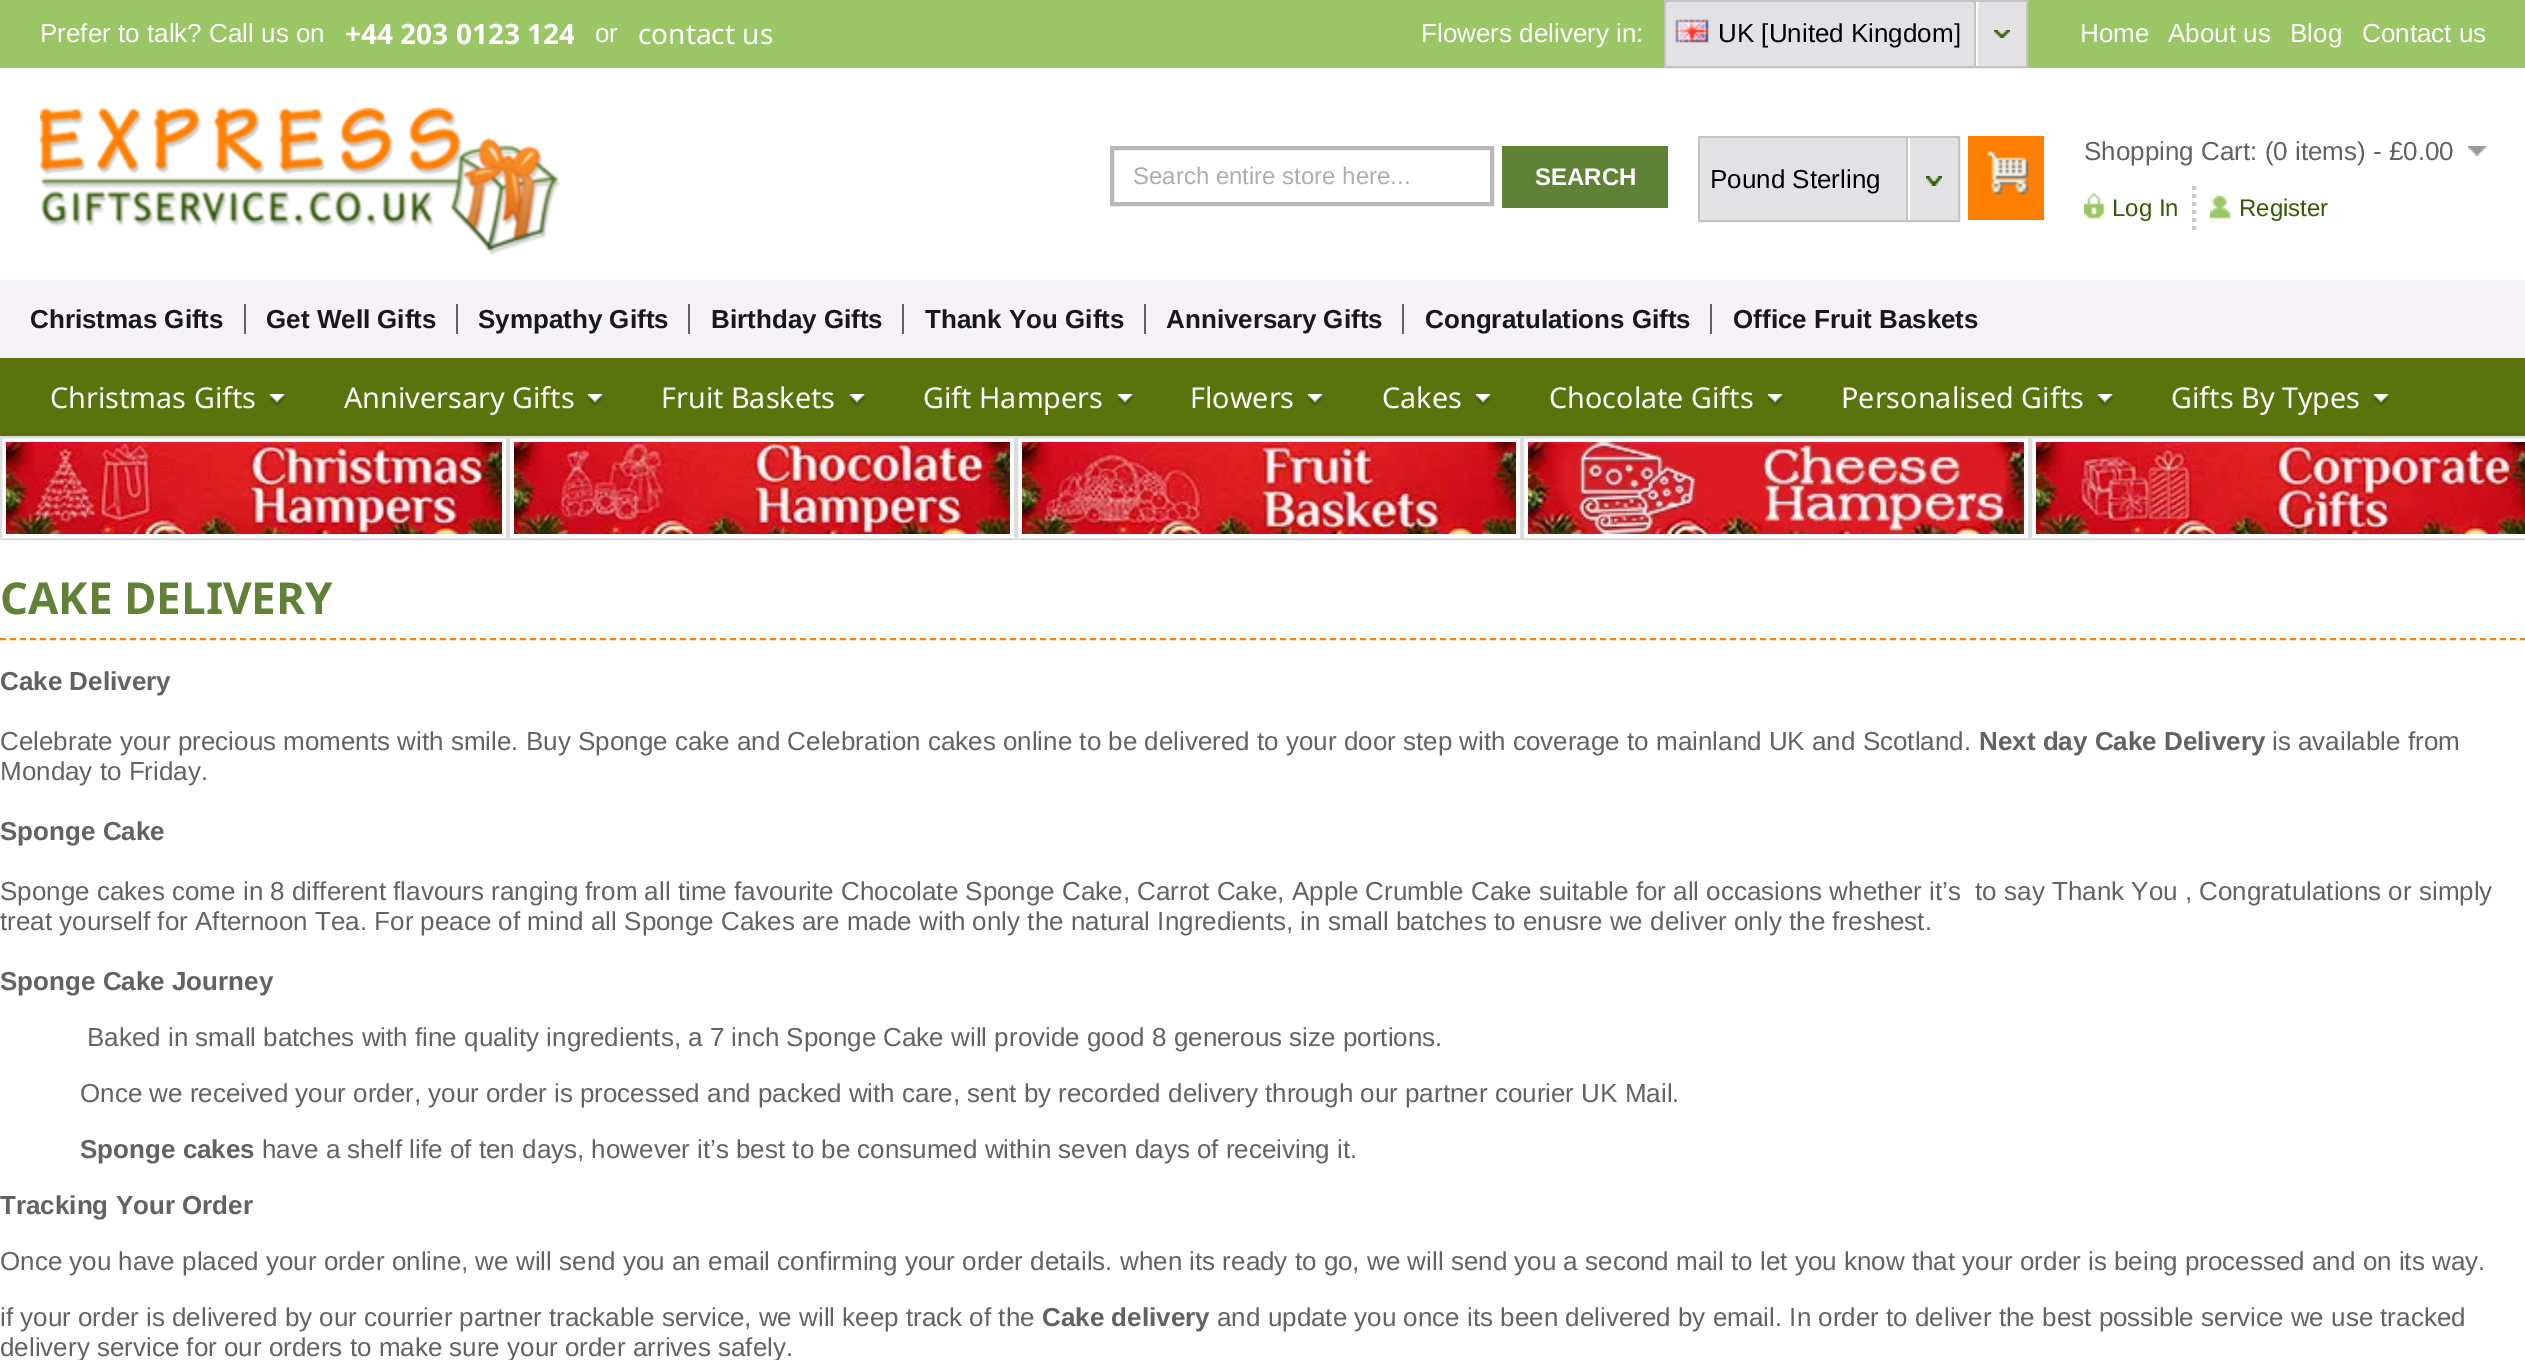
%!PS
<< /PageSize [2525 1360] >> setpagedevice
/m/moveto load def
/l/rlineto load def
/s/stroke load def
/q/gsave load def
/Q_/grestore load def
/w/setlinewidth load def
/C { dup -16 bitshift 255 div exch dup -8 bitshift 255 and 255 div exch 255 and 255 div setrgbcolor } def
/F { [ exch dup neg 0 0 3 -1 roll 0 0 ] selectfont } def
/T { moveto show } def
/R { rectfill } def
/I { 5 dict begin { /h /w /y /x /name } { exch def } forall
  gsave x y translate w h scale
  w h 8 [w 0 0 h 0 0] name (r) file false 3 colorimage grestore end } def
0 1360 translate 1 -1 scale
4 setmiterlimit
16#FFFFFF C
0 0 2525 1360 R
16#9AC666 C
0 0 2525 68 R
/LiberationSans-Regular 26 F
16#FFFFFF C
(Prefer to talk? Call us on) 40 42 T
q
344 0 230 66 rectclip
/NotoSans-Bold 28 F
(+44 203 0123 124) 345 44 T
Q_
(or) 595 42 T
/NotoSans-Regular 28 F
(contact us) 638 44 T
/LiberationSans-Regular 26 F
(Flowers delivery in:) 1421 42 T
16#C3C3C3 C
2 w
1665 1 362 66 rectstroke
16#E2E2E4 C
1666 2 360 64 R
(1.rgb) 1675 19 34 24 I
16#000000 C
(UK [United Kingdom]) 1718 42 T
16#FFFFFF C
1976 2 2 64 R
16#C3C3C3 C
1974 2 2 64 R
(2.rgb) 1994 30 16 8 I
16#FFFFFF C
(Home) 2080 42 T
(About us) 2168 42 T
(Blog) 2290 42 T
(Contact us) 2362 42 T
(3.rgb) 40 108 520 146 I
16#B8B8B8 C
4 w
1112 148 380 56 rectstroke
/LiberationSans-Regular 24 F
16#ADADAD C
(Search entire store here...) 1133 184 T
16#5F8236 C
1502 146 166 62 R
/LiberationSans-Bold 24 F
16#FFFFFF C
(SEARCH) 1535 185 T
16#C3C3C3 C
2 w
1699 137 260 84 rectstroke
16#E2E2E4 C
1700 138 258 82 R
/LiberationSans-Regular 26 F
16#000000 C
(Pound Sterling) 1710 188 T
16#FFFFFF C
1908 138 2 82 R
16#C3C3C3 C
1906 138 2 82 R
(4.rgb) 1926 176 16 10 I
16#FF7F00 C
1968 136 76 84 R
(5.rgb) 1987 151 42 44 I
(6.rgb) 2468 146 18 10 I
16#636262 C
(Shopping Cart: \(0 items\) - £0.00) 2084 160 T
(7.rgb) 2084 193 21 26 I
16#CCCCCC C
4 w
[4 4] 0 setdash
2194 186 m 0 44 l s
/LiberationSans-Regular 24 F
16#335B04 C
(Log In) 2112 216 T
(8.rgb) 2210 195 21 24 I
(Register) 2239 216 T
16#F4F2F7 C
0 280 2525 78 R
16#636363 C
244 304 2 30 R
/LiberationSans-Bold 26 F
16#181818 C
(Christmas Gifts) 30 328 T
16#636363 C
456 304 2 30 R
16#181818 C
(Get Well Gifts) 266 328 T
16#636363 C
688 304 2 30 R
16#181818 C
(Sympathy Gifts) 478 328 T
16#636363 C
902 304 2 30 R
16#181818 C
(Birthday Gifts) 711 328 T
16#636363 C
1144 304 2 30 R
16#181818 C
(Thank You Gifts) 925 328 T
16#636363 C
1402 304 2 30 R
16#181818 C
(Anniversary Gifts) 1166 328 T
16#636363 C
1710 304 2 30 R
16#181818 C
(Congratulations Gifts) 1425 328 T
(Office Fruit Baskets) 1733 328 T
16#5A730D C
0 358 2525 78 R
/NotoSans-Regular 28.75 F
16#FFFFFF C
(Christmas Gifts) 50 408 T
(9.rgb) 270 394 16 12 I
(Anniversary Gifts) 344 408 T
(9.rgb) 588 394 16 12 I
(Fruit Baskets) 661 408 T
(9.rgb) 850 394 16 12 I
(Gift Hampers) 923 408 T
(9.rgb) 1118 394 16 12 I
(Flowers) 1190 408 T
(9.rgb) 1308 394 16 12 I
(Cakes) 1382 408 T
(9.rgb) 1476 394 16 12 I
(Chocolate Gifts) 1549 408 T
(9.rgb) 1768 394 16 12 I
(Personalised Gifts) 1841 408 T
(9.rgb) 2098 394 16 12 I
(Gifts By Types) 2171 408 T
(9.rgb) 2374 394 16 12 I
16#DDDDDD C
2 w
[] 0 setdash
1 437 506 102 rectstroke
(10.rgb) 6 442 496 92 I
509 437 506 102 rectstroke
(11.rgb) 514 442 496 92 I
1017 437 504 102 rectstroke
(12.rgb) 1022 442 494 92 I
1523 437 506 102 rectstroke
(13.rgb) 1528 442 496 92 I
2031 437 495 102 rectstroke
(14.rgb) 2036 442 489 92 I
16#FF7F00 C
[6 4] 0 setdash
0 639 m 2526 0 l s
/NotoSans-Bold 44 F
16#5F8236 C
(CAKE DELIVERY) 0 614 T
/LiberationSans-Bold 26 F
16#636262 C
(Cake Delivery) 0 690 T
/LiberationSans-Regular 26 F
(Celebrate your precious moments with smile. Buy Sponge cake and Celebration cakes online to be delivered to your door step with coverage to mainland UK and Scotland.) 0 750 T
/LiberationSans-Bold 26 F
(Next day Cake Delivery) 1979 750 T
/LiberationSans-Regular 26 F
(is available from) 2272 750 T
(Monday to Friday.) 0 780 T
/LiberationSans-Bold 26 F
(Sponge Cake) 0 840 T
/LiberationSans-Regular 26 F
(Sponge cakes come in 8 different flavours ranging from all time favourite Chocolate Sponge Cake, Carrot Cake, Apple Crumble Cake suitable for all occasions whether it’s  to say Thank You , Congratulations or simply) 0 900 T
(treat yourself for Afternoon Tea. For peace of mind all Sponge Cakes are made with only the natural Ingredients, in small batches to enusre we deliver only the freshest.) 0 930 T
/LiberationSans-Bold 26 F
(Sponge Cake Journey) 0 990 T
/LiberationSans-Regular 26 F
(Baked in small batches with fine quality ingredients, a 7 inch Sponge Cake will provide good 8 generous size portions.) 87 1046 T
(Once we received your order, your order is processed and packed with care, sent by recorded delivery through our partner courier UK Mail.) 80 1102 T
/LiberationSans-Bold 26 F
(Sponge cakes) 80 1158 T
/LiberationSans-Regular 26 F
(have a shelf life of ten days, however it’s best to be consumed within seven days of receiving it.) 262 1158 T
/LiberationSans-Bold 26 F
(Tracking Your Order) 0 1214 T
/LiberationSans-Regular 26 F
(Once you have placed your order online, we will send you an email confirming your order details. when its ready to go, we will send you a second mail to let you know that your order is being processed and on its way.) 0 1270 T
(if your order is delivered by our courrier partner trackable service, we will keep track of the) 0 1326 T
/LiberationSans-Bold 26 F
(Cake delivery) 1042 1326 T
/LiberationSans-Regular 26 F
(and update you once its been delivered by email. In order to deliver the best possible service we use tracked) 1217 1326 T
(delivery service for our orders to make sure your order arrives safely.) 0 1356 T
showpage
